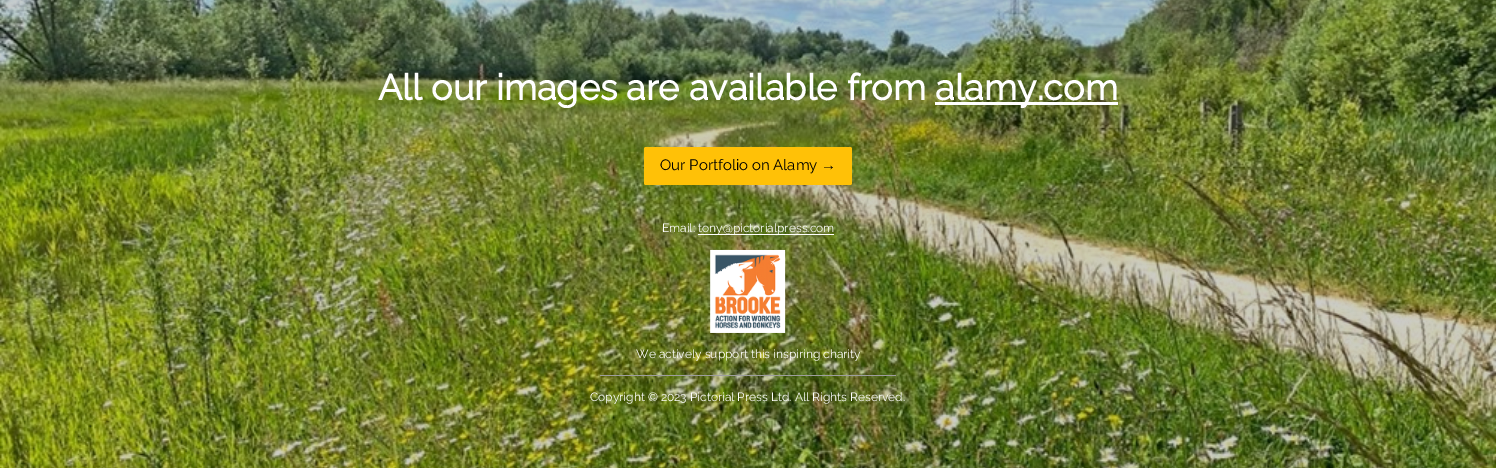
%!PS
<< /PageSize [1496 468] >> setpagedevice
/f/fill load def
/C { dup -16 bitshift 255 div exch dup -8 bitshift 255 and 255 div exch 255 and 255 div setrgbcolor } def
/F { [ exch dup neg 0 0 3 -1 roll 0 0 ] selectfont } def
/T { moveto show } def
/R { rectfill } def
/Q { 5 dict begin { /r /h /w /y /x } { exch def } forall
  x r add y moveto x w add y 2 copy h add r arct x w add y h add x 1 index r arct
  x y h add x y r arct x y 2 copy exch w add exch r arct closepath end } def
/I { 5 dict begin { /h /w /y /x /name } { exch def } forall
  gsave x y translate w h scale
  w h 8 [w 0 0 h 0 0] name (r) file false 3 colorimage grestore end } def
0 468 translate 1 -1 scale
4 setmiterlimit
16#FFFFFF C
0 0 1496 468 R
(1.rgb) 0 0 1496 468 I
/Raleway-Bold 36 F
(All our images are available from) 378 100 T
935 102 183 3 R
(alamy.com) 935 100 T
16#FFC107 C
644 147 208 38 2 Q f
/Raleway-Thin 15 F
16#000000 C
(Our Portfolio on Alamy) 660 170 T
/LiberationSans-Regular 15 F
(→) 821 170 T
/Raleway-Thin 12 F
16#FFFFFF C
(Email:) 662 232 T
698 234 136 1 R
(tony@pictorialpress.com) 698 232 T
(2.rgb) 710 249 76 84 I
(We actively support this inspiring charity) 636 358 T
16#9E9E9E C
600 375 296 1 R
16#FFFFFF C
(Copyright © 2023 Pictorial Press Ltd. All Rights Reserved.) 590 401 T
showpage
